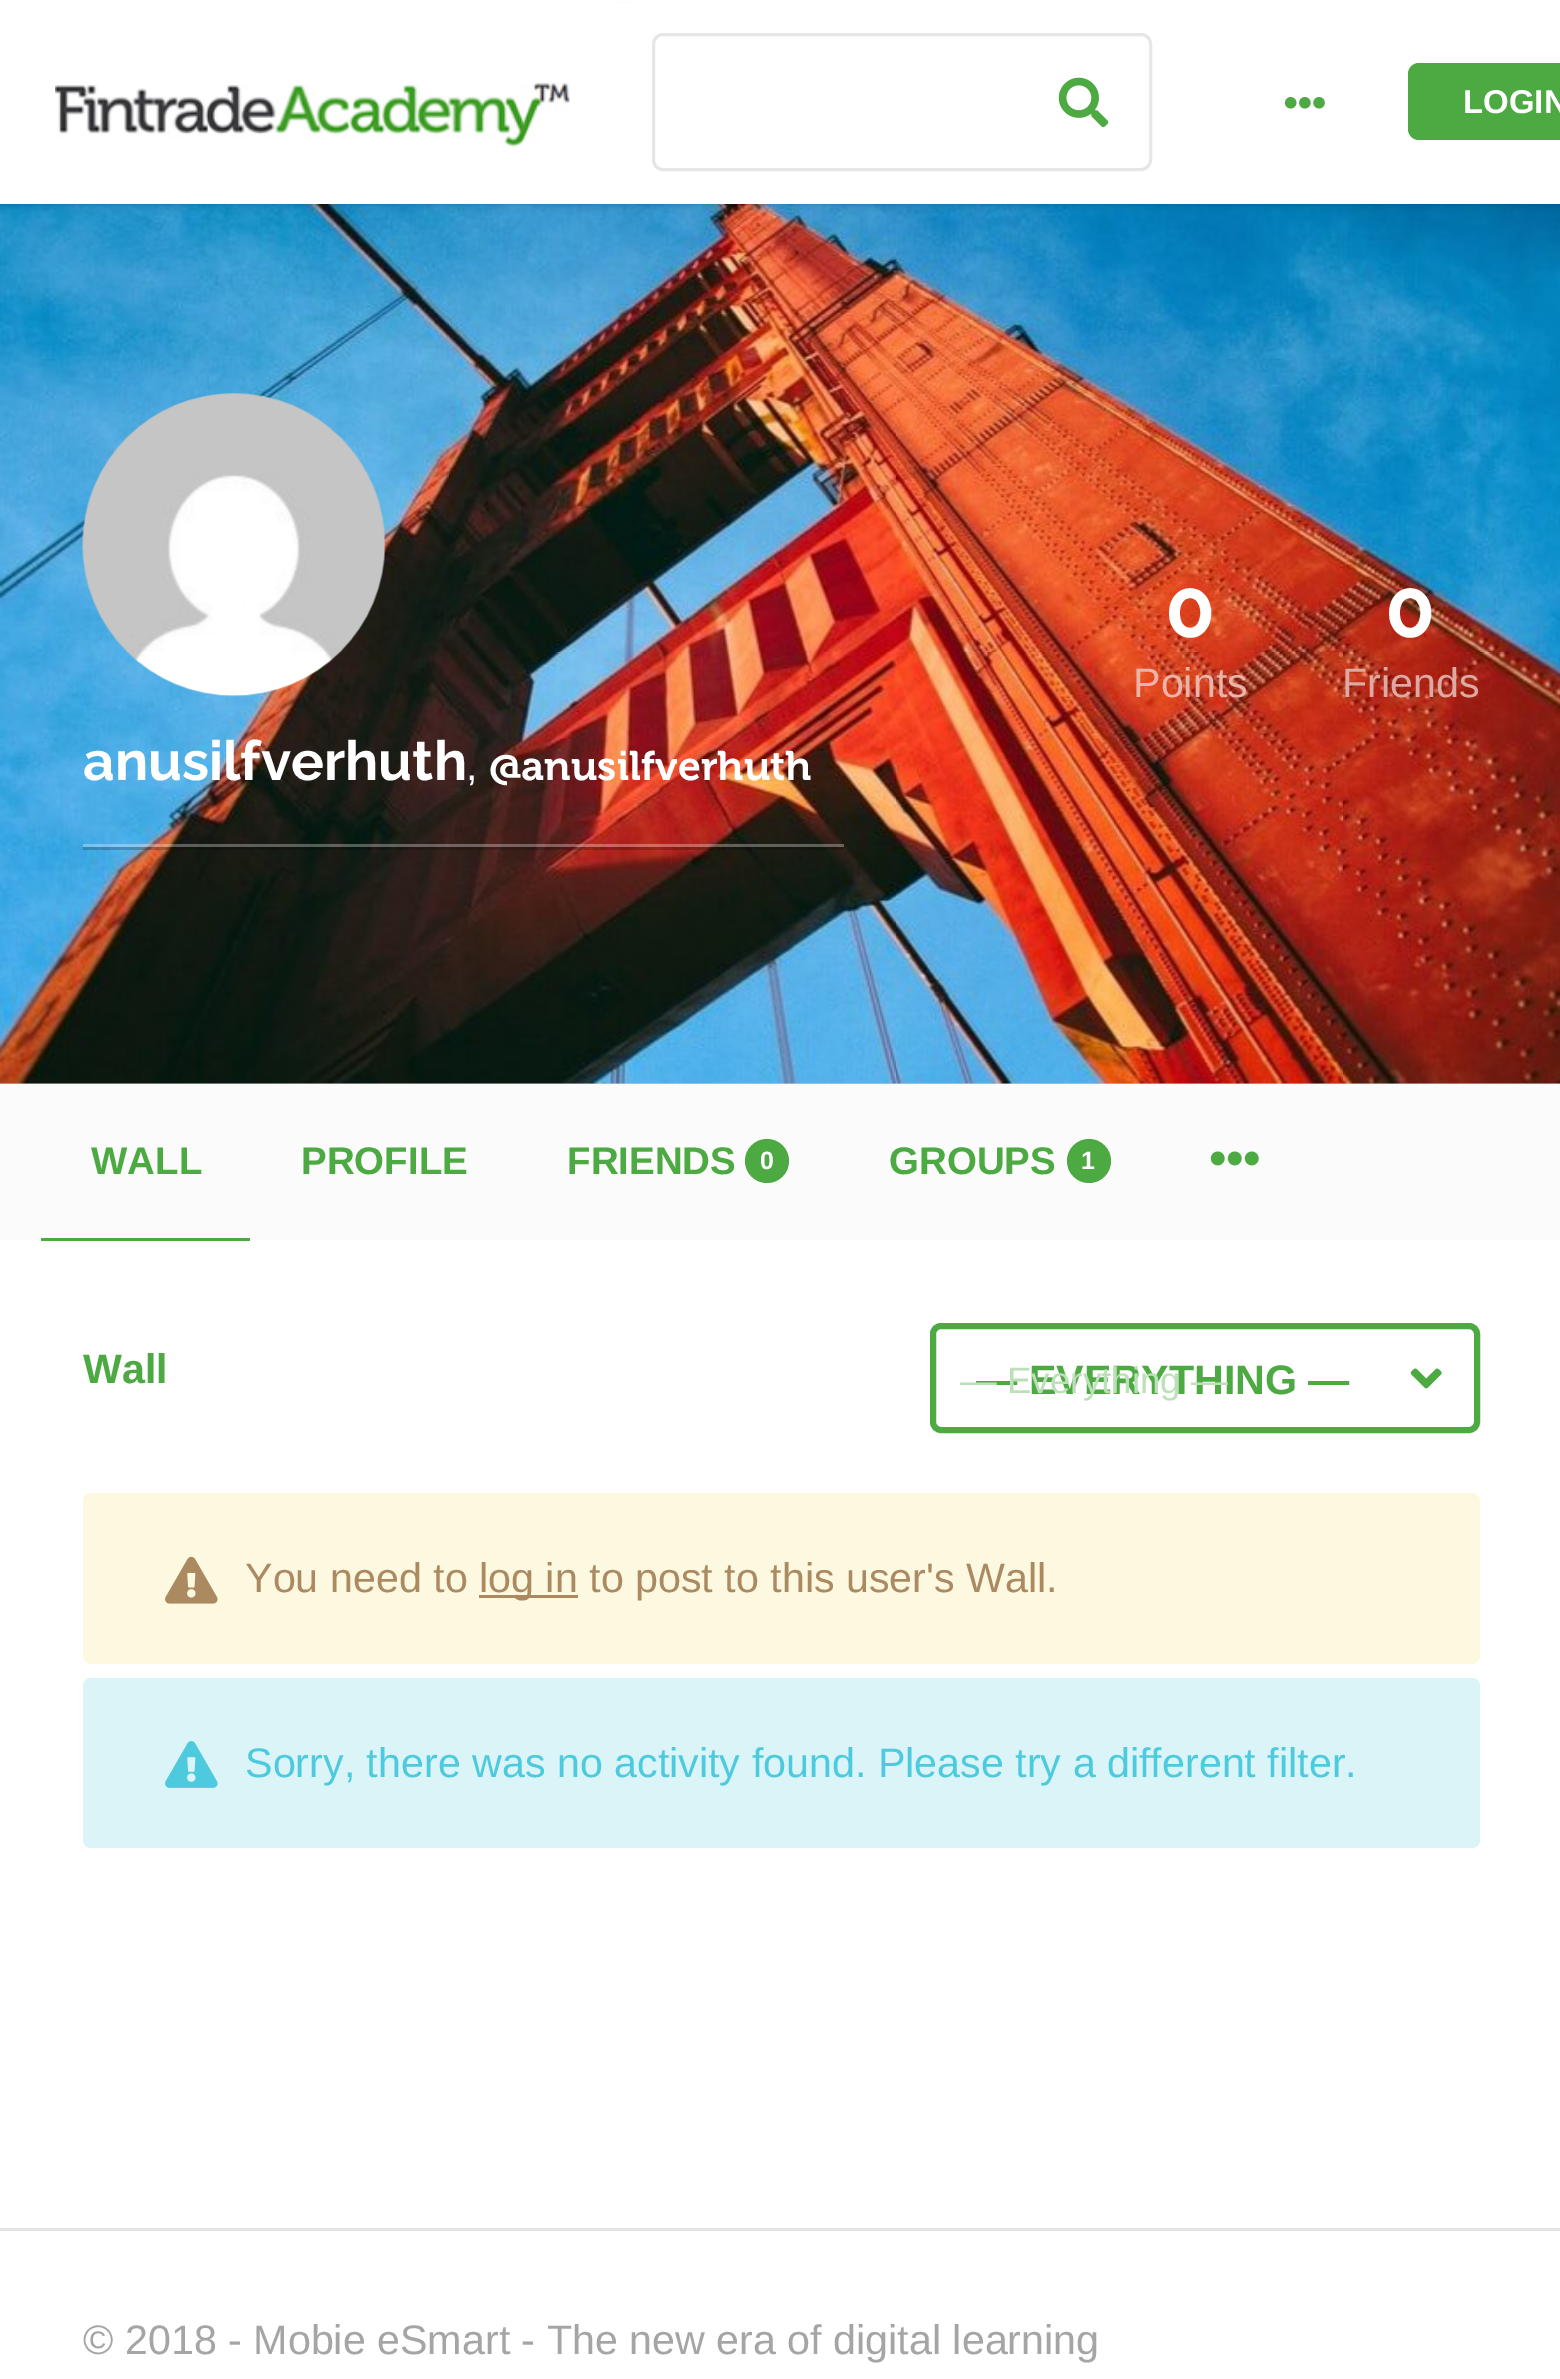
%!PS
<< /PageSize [1560 2379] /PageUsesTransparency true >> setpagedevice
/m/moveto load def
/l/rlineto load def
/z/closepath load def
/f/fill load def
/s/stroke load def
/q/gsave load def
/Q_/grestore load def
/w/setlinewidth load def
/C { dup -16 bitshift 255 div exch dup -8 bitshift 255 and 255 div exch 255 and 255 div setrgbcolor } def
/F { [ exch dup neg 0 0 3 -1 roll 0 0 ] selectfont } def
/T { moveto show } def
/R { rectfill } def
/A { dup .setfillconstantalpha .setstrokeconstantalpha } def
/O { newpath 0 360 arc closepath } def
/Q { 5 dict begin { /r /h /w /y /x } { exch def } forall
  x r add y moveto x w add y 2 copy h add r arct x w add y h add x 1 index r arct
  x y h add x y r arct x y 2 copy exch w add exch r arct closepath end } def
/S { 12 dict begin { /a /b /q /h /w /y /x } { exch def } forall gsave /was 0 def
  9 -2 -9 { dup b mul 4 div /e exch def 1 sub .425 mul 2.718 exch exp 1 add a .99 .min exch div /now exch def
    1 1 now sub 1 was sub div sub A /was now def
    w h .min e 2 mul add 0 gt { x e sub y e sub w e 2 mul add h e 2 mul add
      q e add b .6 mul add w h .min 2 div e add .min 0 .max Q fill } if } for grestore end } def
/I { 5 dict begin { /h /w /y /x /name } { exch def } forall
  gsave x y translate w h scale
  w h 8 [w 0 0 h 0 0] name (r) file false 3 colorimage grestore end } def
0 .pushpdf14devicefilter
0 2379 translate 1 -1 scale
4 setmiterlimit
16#FFFFFF C
0 0 1560 2379 R
16#D5D5D5 C
0 1083 1560 1 R
(4.rgb) 0 204 1560 880 I
0.05 A
16#000000 C
624 3 m 0 203 l 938 0 l 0 -2 l -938 0 l z f
1 A
624 6 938 203 0 3 .05 S
0.05 A
0 204 624 2 R
1 A
0 6 624 203 0 3 .05 S
16#FFFFFF C
0 3 1560 201 R
(1.rgb) 55 82 515 65 I
16#E6E6E6 C
3 w
653.5 34.5 497 135 9.5 Q s
0.15 A
16#FFFFFF C
655 36 495 132 11 Q f
1 A
(2.rgb) 1058 77 51 51 I
(3.rgb) 1284 97 41 12 I
16#4DAA43 C
1408 63 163 77 11 Q f
/LiberationSans-Bold 33 F
16#FFFFFF C
(LOGIN) 1463 113 T
/Raleway-Bold 82 F
(0) 1165 637 T
/LiberationSans-Regular 41.25 F
16#EAB4A8 C
(Points) 1133 697 T
/Raleway-Bold 82 F
16#FFFFFF C
(0) 1385 637 T
/LiberationSans-Regular 41.25 F
16#DDAAA3 C
(Friends) 1342 697 T
(5.rgb) 82 393 304 304 I
0.2 A
16#000000 C
83 847 761 3 R
0.3 A
16#FFFFFF C
83 844 761 3 R
/Raleway-Bold 55 F
1 A
(anusilfverhuth) 83 780 T
/LiberationSans-Regular 41.25 F
(,) 466 780 T
/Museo-SemiBold 41.25 F
(@anusilfverhuth) 489 780 T
16#FBFBFB C
0 1084 1560 156 R
16#4DAA43 C
41 1238 209 3 R
/LiberationSans-Bold 38.5 F
(WALL) 91 1174 T
(PROFILE) 301 1174 T
(FRIENDS) 567 1174 T
767 1161 22 O f
/LiberationSans-Bold 25 F
16#FFFFFF C
(0) 760 1169 T
/LiberationSans-Bold 38.5 F
16#4DAA43 C
(GROUPS) 889 1174 T
1089 1161 22 O f
/LiberationSans-Bold 25 F
16#FFFFFF C
(1) 1081 1169 T
(6.rgb) 1210 1151 49 15 I
/LiberationSans-Bold 41.25 F
16#4DAA43 C
(Wall) 83 1383 T
6 w
933 1326 544 104 8 Q s
(— EVERYTHING —) 976 1394 T
q
960 1359 484 46 rectclip
/LiberationSans-Regular 36.75 F
16#BDE0BA C
(— Everything —) 960 1393 T
Q_
(7.rgb) 1410 1368 32 21 I
16#FDF9E0 C
83 1493 1397 171 8 Q f
(8.rgb) 165 1556 53 48 I
/LiberationSans-Regular 41.25 F
16#AB8A61 C
(You need to) 245 1592 T
479 1595 99 3 R
(log in to post to this user's Wall.) 479 1592 T
16#DBF4F8 C
83 1678 1397 170 8 Q f
(9.rgb) 165 1741 53 47 I
16#4DCADD C
(Sorry, there was no activity found. Please try a different filter.) 245 1777 T
16#E3E3E3 C
0 2228 1560 3 R
16#A5A5A5 C
(© 2018 - Mobie eSmart - The new era of digital learning) 83 2354 T
.poppdf14devicefilter showpage
